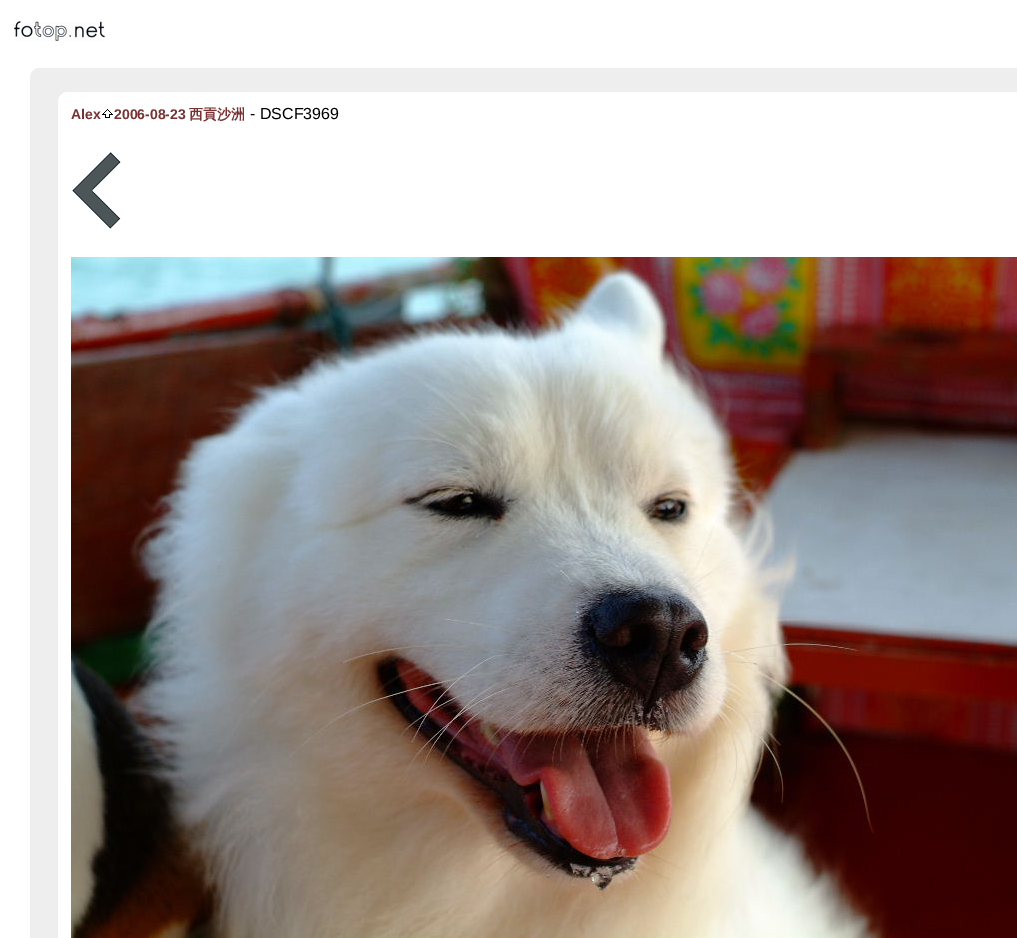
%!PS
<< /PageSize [1017 938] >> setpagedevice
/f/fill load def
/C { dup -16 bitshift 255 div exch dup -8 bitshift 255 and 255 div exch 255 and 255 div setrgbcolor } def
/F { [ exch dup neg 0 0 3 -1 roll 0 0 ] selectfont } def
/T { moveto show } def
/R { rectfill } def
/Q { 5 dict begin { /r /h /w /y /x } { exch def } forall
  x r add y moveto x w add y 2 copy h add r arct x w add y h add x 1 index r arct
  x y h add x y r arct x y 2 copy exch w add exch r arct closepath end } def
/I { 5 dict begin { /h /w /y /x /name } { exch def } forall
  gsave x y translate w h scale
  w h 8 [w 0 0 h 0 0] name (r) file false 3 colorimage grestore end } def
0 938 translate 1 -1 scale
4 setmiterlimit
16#FFFFFF C
0 0 1017 938 R
(1.rgb) 14 21 91 20 I
16#EEEEEE C
30 68 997 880 10 Q f
16#FFFFFF C
58 92 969 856 10 Q f
/LiberationSans-Bold 14 F
16#773333 C
(Alex) 71 119 T
(2.rgb) 102 109 11 9 I
(2006-08-23) 114 119 T
/WenQuanYiZenHei-Bold 14 F
(西貢沙洲) 189 119 T
/LiberationSans-Regular 16 F
16#000000 C
(- DSCF3969) 250 119 T
(3.rgb) 72 152 49 77 I
(4.rgb) 71 257 946 681 I
showpage
